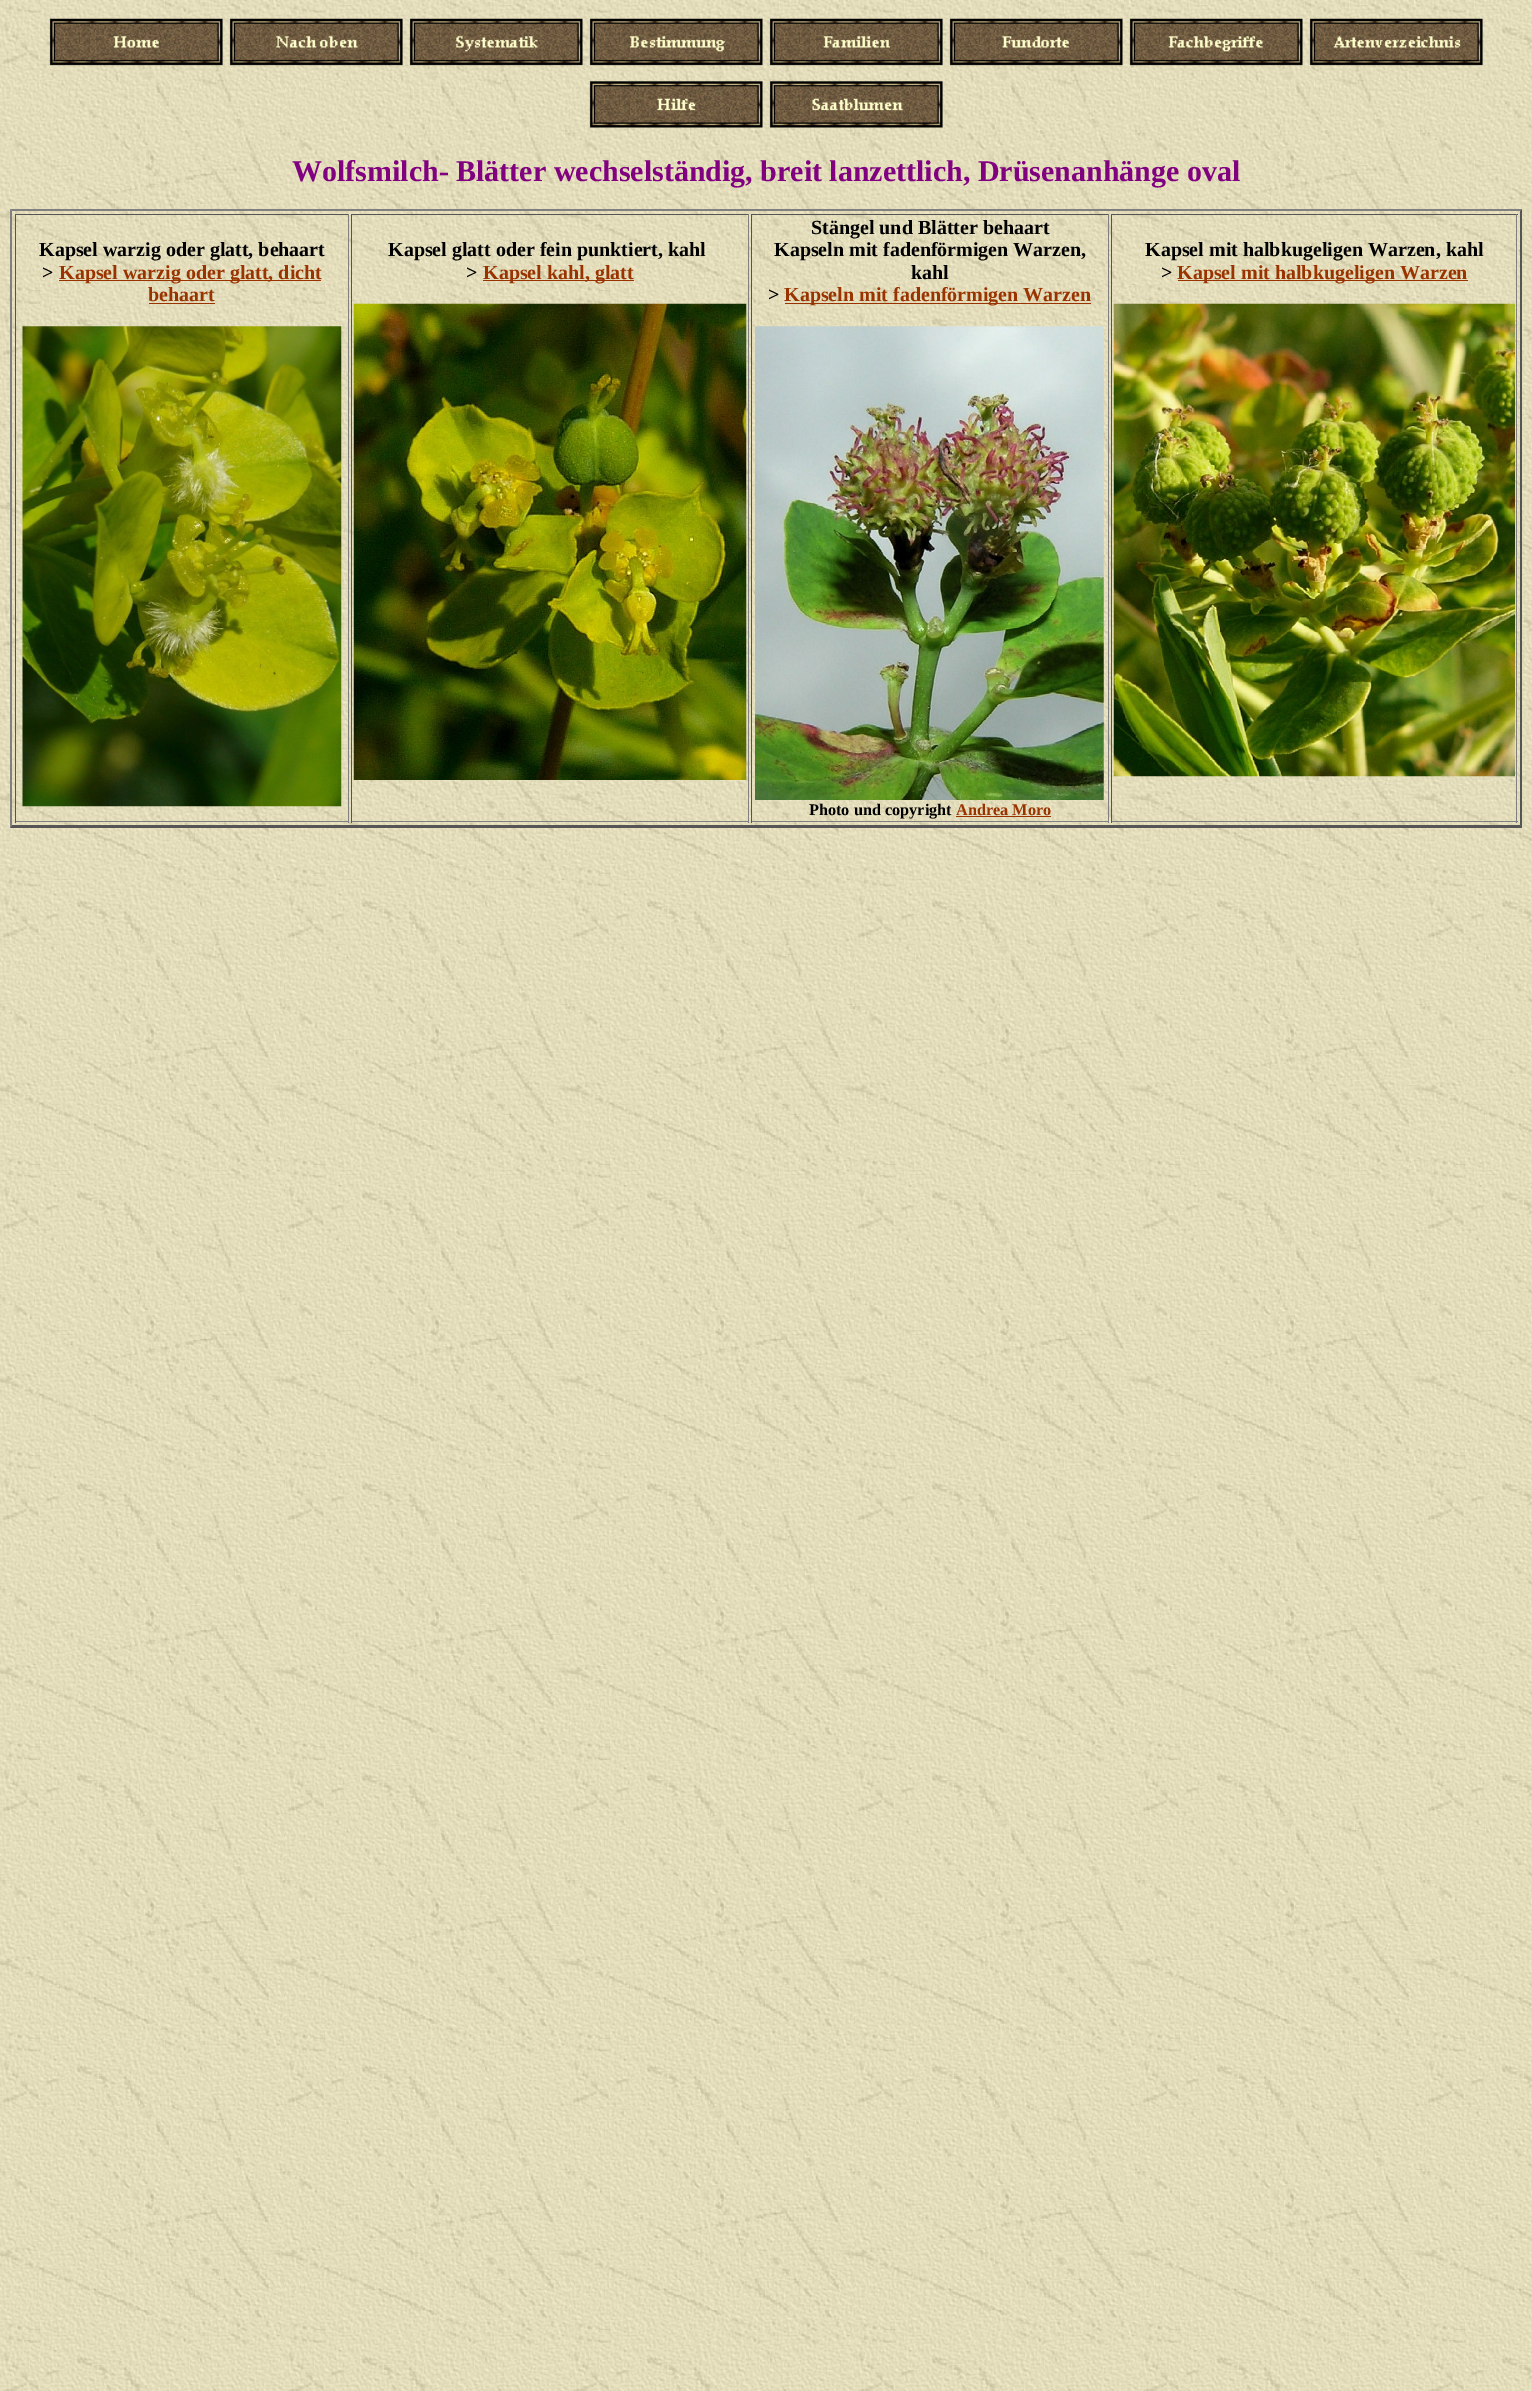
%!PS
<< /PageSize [1532 2391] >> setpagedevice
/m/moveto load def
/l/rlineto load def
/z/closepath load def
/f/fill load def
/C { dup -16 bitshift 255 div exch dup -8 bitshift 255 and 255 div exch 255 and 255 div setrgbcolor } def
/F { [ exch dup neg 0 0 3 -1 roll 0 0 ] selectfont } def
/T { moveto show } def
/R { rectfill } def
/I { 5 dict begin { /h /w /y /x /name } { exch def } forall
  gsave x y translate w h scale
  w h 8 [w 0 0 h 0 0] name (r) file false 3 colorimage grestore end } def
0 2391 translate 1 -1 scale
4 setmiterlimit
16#FFFFFF C
0 0 1532 2391 R
(1.rgb) 0 0 1532 2391 I
(2.rgb) 49 18 174 48 I
(3.rgb) 229 18 174 48 I
(4.rgb) 409 18 174 48 I
(5.rgb) 589 18 174 48 I
(6.rgb) 769 18 174 48 I
(7.rgb) 949 18 174 48 I
(8.rgb) 1129 18 174 48 I
(9.rgb) 1309 18 174 48 I
(10.rgb) 589 81 174 47 I
(11.rgb) 769 81 174 47 I
/LiberationSerif-Bold 30 F
16#800080 C
(Wolfsmilch- Blätter wechselständig, breit lanzettlich, Drüsenanhänge oval) 292 181 T
16#808080 C
10 209 m 1512 0 l -2 2 l -1508 0 l z f
16#555555 C
1522 209 m 0 619 l -2 -3 l 0 -614 l z f
1522 828 m -1512 0 l 2 -3 l 1508 0 l z f
16#808080 C
10 828 m 0 -619 l 2 2 l 0 614 l z f
16#555555 C
15 214 334 1 R
16#808080 C
348 214 1 609 R
15 821 334 1 R
16#555555 C
15 214 1 609 R
/LiberationSerif-Bold 20 F
16#000000 C
(Kapsel warzig oder glatt, behaart) 39 256 T
(>) 42 279 T
16#993300 C
59 280 262 1 R
(Kapsel warzig oder glatt, dicht) 59 279 T
(behaart) 148 301 T
149 303 66 1 R
(12.rgb) 22 326 320 481 I
16#555555 C
351 214 398 1 R
16#808080 C
748 214 1 609 R
351 821 398 1 R
16#555555 C
351 214 1 609 R
16#000000 C
(Kapsel glatt oder fein punktiert, kahl) 388 256 T
(>) 466 279 T
16#993300 C
483 280 151 1 R
(Kapsel kahl, glatt) 483 279 T
(13.rgb) 353 303 394 477 I
16#555555 C
751 214 358 1 R
16#808080 C
1108 214 1 609 R
751 821 358 1 R
16#555555 C
751 214 1 609 R
16#000000 C
(Stängel und Blätter behaart) 811 234 T
(Kapseln mit fadenförmigen Warzen,) 774 256 T
(kahl) 911 279 T
(>) 768 301 T
16#993300 C
785 303 306 1 R
(Kapseln mit fadenförmigen Warzen) 784 301 T
(14.rgb) 755 326 349 474 I
/LiberationSerif-Bold 16.25 F
16#000000 C
(Photo und copyright) 809 815 T
16#993300 C
(Andrea Moro) 956 815 T
956 816 95 1 R
16#555555 C
1111 214 407 1 R
16#808080 C
1516 214 1 609 R
1111 821 407 1 R
16#555555 C
1111 214 1 609 R
/LiberationSerif-Bold 20 F
16#000000 C
(Kapsel mit halbkugeligen Warzen, kahl) 1145 256 T
(>) 1161 279 T
16#993300 C
1178 280 290 1 R
(Kapsel mit halbkugeligen Warzen) 1177 279 T
(15.rgb) 1113 303 402 474 I
showpage
